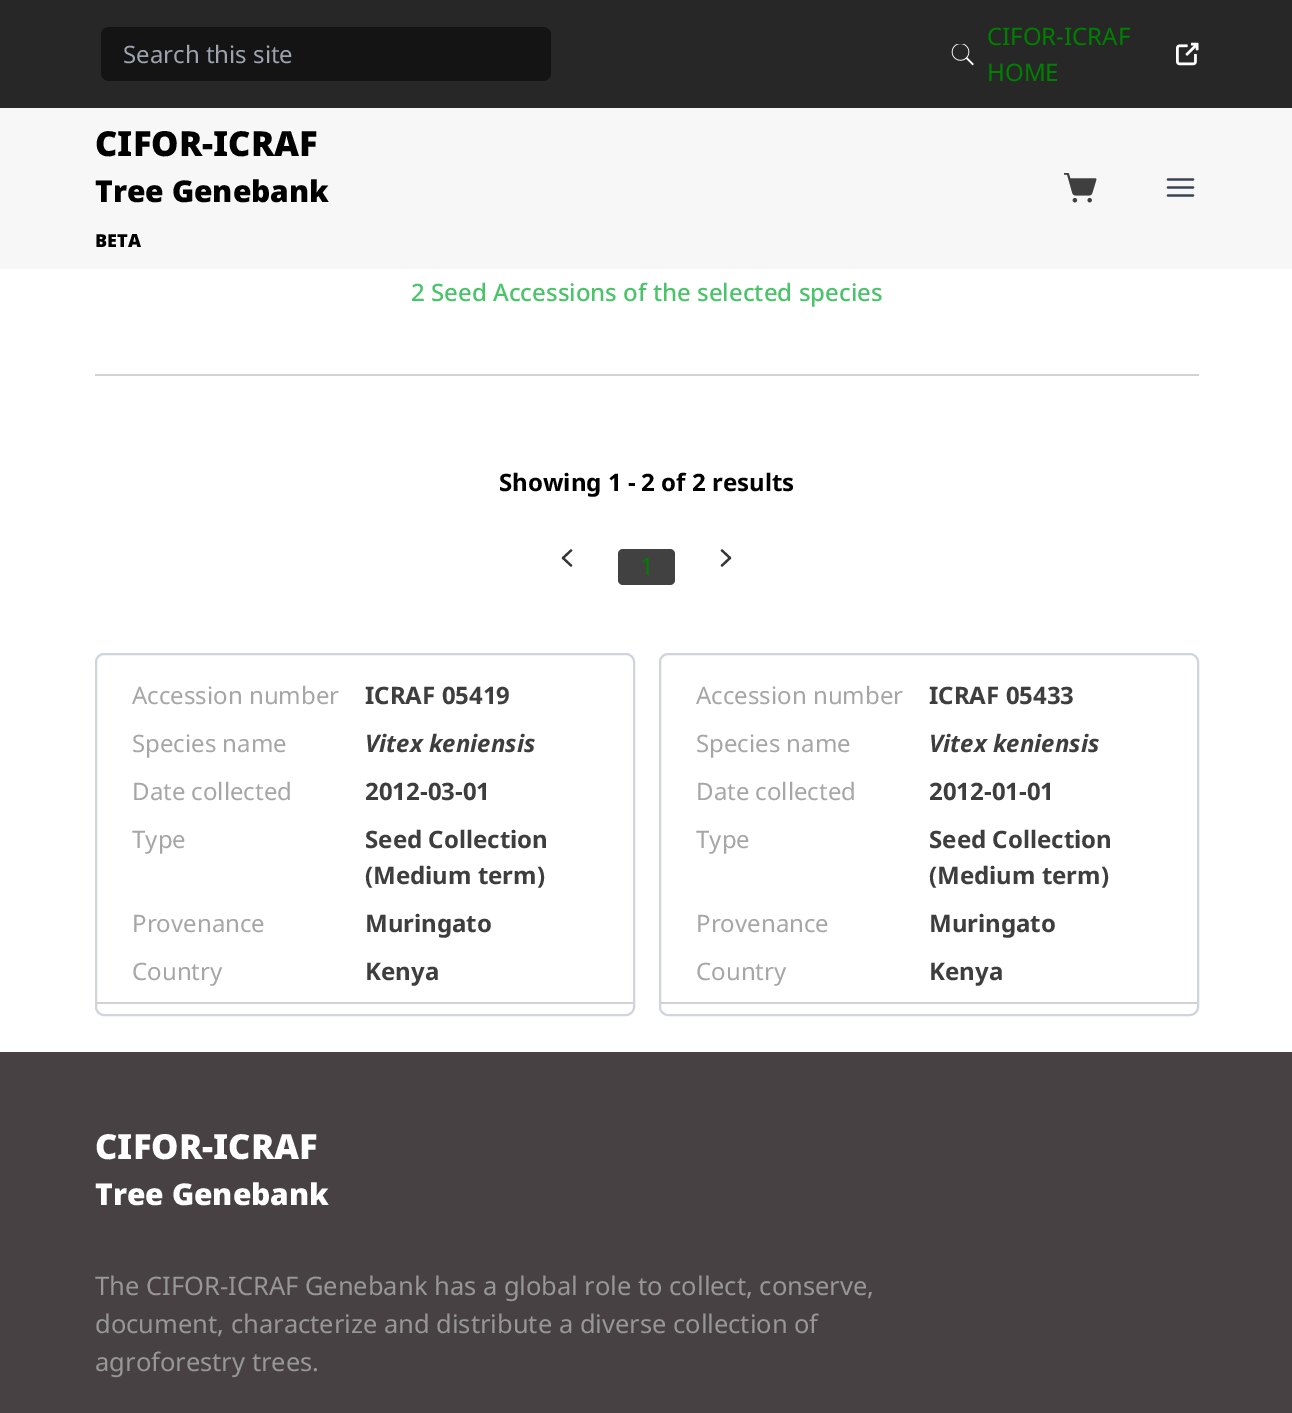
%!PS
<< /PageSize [1292 1413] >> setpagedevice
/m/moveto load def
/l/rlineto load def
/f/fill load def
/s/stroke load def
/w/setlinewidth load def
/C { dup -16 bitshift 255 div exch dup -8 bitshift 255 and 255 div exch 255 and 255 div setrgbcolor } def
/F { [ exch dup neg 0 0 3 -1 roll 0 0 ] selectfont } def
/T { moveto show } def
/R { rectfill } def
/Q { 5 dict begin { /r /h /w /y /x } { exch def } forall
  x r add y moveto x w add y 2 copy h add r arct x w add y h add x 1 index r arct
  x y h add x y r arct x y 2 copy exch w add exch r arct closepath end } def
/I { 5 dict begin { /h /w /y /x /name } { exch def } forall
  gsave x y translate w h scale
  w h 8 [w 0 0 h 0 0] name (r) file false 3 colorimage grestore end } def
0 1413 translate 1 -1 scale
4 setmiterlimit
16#FFFFFF C
0 0 1292 1413 R
16#272727 C
0 0 1292 108 R
16#141414 C
101 27 450 54 8 Q f
/NotoSans-Regular 24 F
16#9CA3AF C
(Search this site) 123 63 T
(1.rgb) 951 44 23 22 I
16#008000 C
(CIFOR-ICRAF) 987 45 T
(2.rgb) 1176 42 23 24 I
(HOME) 987 81 T
16#F7F7F7 C
0 108 1292 161 R
/NotoSans-Black 34.5 F
16#000000 C
(CIFOR-ICRAF) 95 156 T
/NotoSans-Black 30 F
(Tree Genebank) 95 202 T
/NotoSans-Black 18 F
(BETA) 95 247 T
(3.rgb) 1064 173 33 30 I
16#374151 C
2.2 w
1 setlinecap
1 setlinejoin
1168 179.5 m 25 0 l 1168 187.5 m 25 0 l 1168 195.5 m 25 0 l s
/NotoSans-Medium 24 F
16#49C468 C
(2 Seed Accessions of the selected species) 411 301 T
16#D2D2D2 C
95 374 1104 2 R
/NotoSans-Bold 24 F
16#000000 C
(Showing 1 - 2 of 2 results) 499 491 T
16#353535 C
571 550.5 m -8 7.5 l 8 7.5 l s
16#414141 C
618 549 57 36 5 Q f
/NotoSans-Regular 24 F
16#008000 C
(1) 640 575 T
16#353535 C
722 565.5 m 8 -7.5 l -8 -7.5 l s
16#D1D5DB C
2 w
0 setlinecap
0 setlinejoin
96 654 538 361 8 Q s
16#A6A6A6 C
(Accession number) 132 704 T
/NotoSans-Bold 24 F
16#3E3E3E C
(ICRAF 05419) 365 704 T
/NotoSans-Regular 24 F
16#A6A6A6 C
(Species name) 132 752 T
/NotoSans-BoldItalic 24 F
16#3E3E3E C
(Vitex keniensis) 365 752 T
/NotoSans-Regular 24 F
16#A6A6A6 C
(Date collected) 132 800 T
/NotoSans-Bold 24 F
16#3E3E3E C
(2012-03-01) 365 800 T
/NotoSans-Regular 24 F
16#A6A6A6 C
(Type) 132 848 T
/NotoSans-Bold 24 F
16#3E3E3E C
(Seed Collection) 365 848 T
(\(Medium term\)) 365 884 T
/NotoSans-Regular 24 F
16#A6A6A6 C
(Provenance) 132 932 T
/NotoSans-Bold 24 F
16#3E3E3E C
(Muringato) 365 932 T
/NotoSans-Regular 24 F
16#A6A6A6 C
(Country) 132 980 T
/NotoSans-Bold 24 F
16#3E3E3E C
(Kenya) 365 980 T
16#D3D2D2 C
96 1002 537 2 R
16#D1D5DB C
660 654 538 361 8 Q s
/NotoSans-Regular 24 F
16#A6A6A6 C
(Accession number) 696 704 T
/NotoSans-Bold 24 F
16#3E3E3E C
(ICRAF 05433) 929 704 T
/NotoSans-Regular 24 F
16#A6A6A6 C
(Species name) 696 752 T
/NotoSans-BoldItalic 24 F
16#3E3E3E C
(Vitex keniensis) 929 752 T
/NotoSans-Regular 24 F
16#A6A6A6 C
(Date collected) 696 800 T
/NotoSans-Bold 24 F
16#3E3E3E C
(2012-01-01) 929 800 T
/NotoSans-Regular 24 F
16#A6A6A6 C
(Type) 696 848 T
/NotoSans-Bold 24 F
16#3E3E3E C
(Seed Collection) 929 848 T
(\(Medium term\)) 929 884 T
/NotoSans-Regular 24 F
16#A6A6A6 C
(Provenance) 696 932 T
/NotoSans-Bold 24 F
16#3E3E3E C
(Muringato) 929 932 T
/NotoSans-Regular 24 F
16#A6A6A6 C
(Country) 696 980 T
/NotoSans-Bold 24 F
16#3E3E3E C
(Kenya) 929 980 T
16#D3D2D2 C
660 1002 537 2 R
16#474143 C
0 1052 1292 361 R
/NotoSans-Black 34.5 F
16#FFFFFF C
(CIFOR-ICRAF) 95 1159 T
/NotoSans-Black 30 F
(Tree Genebank) 95 1205 T
/NotoSans-Regular 25.5 F
16#979797 C
(The CIFOR-ICRAF Genebank has a global role to collect, conserve,) 95 1295 T
(document, characterize and distribute a diverse collection of) 95 1333 T
(agroforestry trees.) 95 1371 T
showpage
